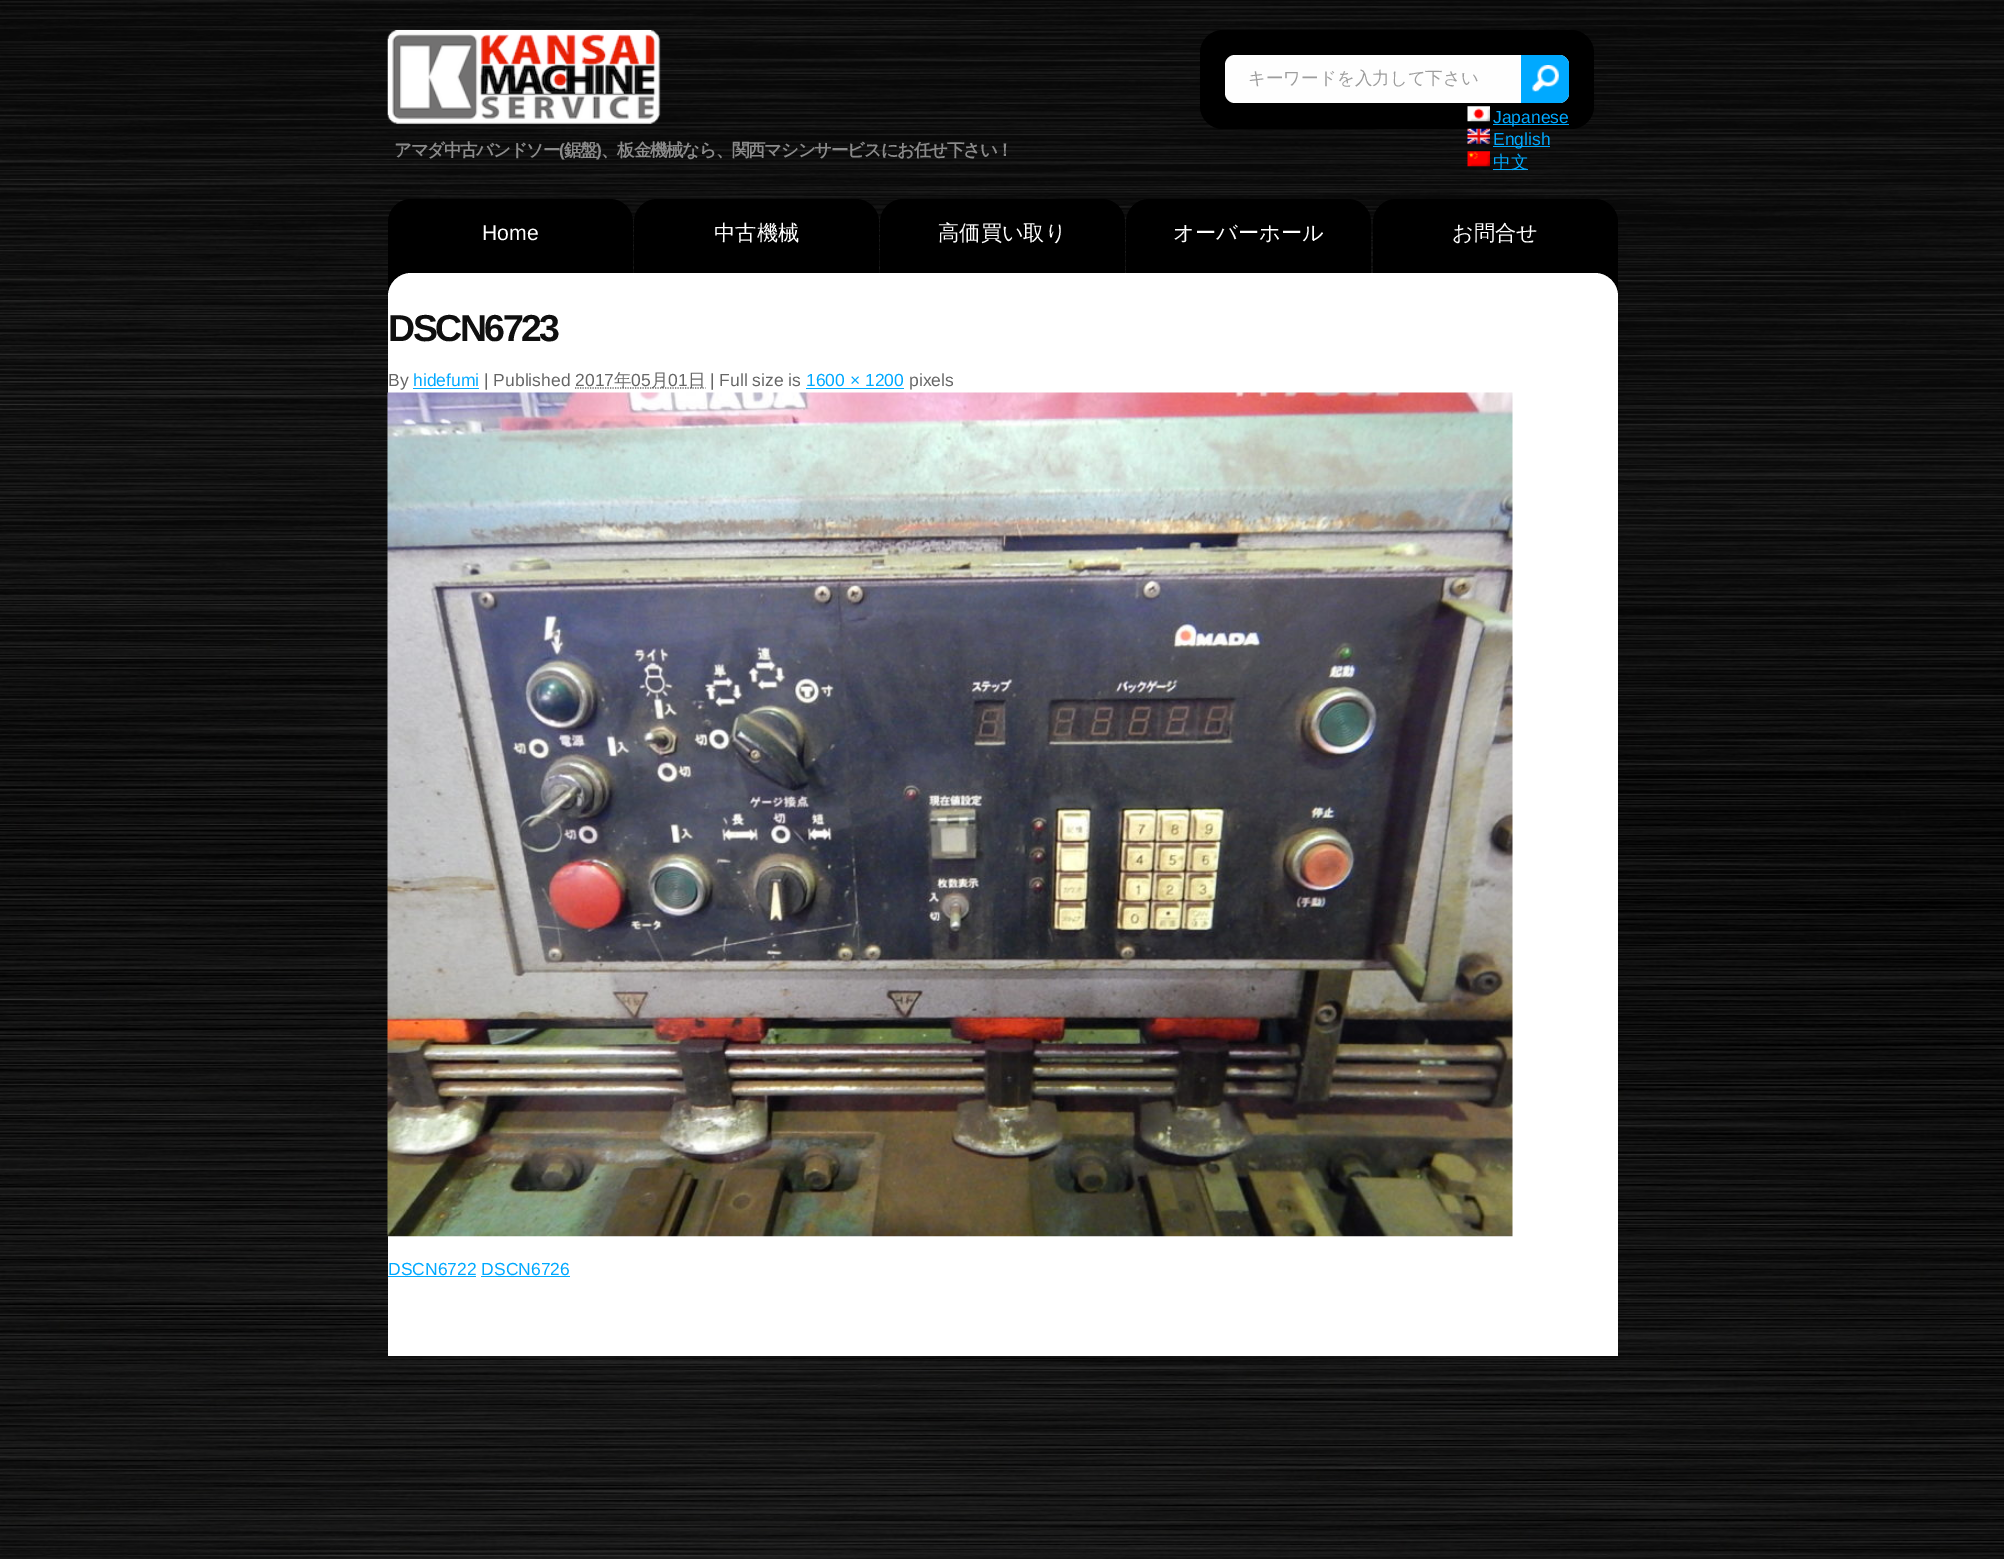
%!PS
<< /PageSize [2004 1559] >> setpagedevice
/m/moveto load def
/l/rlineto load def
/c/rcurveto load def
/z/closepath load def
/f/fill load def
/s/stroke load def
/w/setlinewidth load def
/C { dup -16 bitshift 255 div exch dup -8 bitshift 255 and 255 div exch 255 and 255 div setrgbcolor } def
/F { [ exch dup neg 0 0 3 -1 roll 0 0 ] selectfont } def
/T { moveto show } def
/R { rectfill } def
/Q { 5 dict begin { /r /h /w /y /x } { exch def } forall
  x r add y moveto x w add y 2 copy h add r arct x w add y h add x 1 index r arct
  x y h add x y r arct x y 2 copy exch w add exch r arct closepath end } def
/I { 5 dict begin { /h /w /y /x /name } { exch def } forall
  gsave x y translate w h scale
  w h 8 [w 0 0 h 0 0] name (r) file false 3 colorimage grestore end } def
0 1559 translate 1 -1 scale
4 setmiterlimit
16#FFFFFF C
0 0 2004 1559 R
(1.rgb) 0 0 2004 1559 I
16#000000 C
1200 30 394 99 23 Q f
16#FEFEFE C
1225 55 344 48 10 Q f
/WenQuanYiZenHei-Medium 17.5 F
16#9D9D9D C
(キーワードを入力して下さい) 1248 84 T
16#00A9FF C
1521 55 m 38 0 l 5.5 0 10 4.5 10 10 c 0 28 l 0 5.5 -4.5 10 -10 10 c -38 0 l z f
(2.rgb) 1532 65 27 27 I
(3.rgb) 387 30 274 94 I
/WenQuanYiZenHei-Bold 17.5 F
16#8A8A8A C
394 156 m -1.25 0 (アマダ中古バンドソー) ashow
/LiberationSans-Bold 17.5 F
559 156 m -1.25 0 (\() ashow
/WenQuanYiZenHei-Bold 17.5 F
564 156 m -1.25 0 (鋸盤) ashow
/LiberationSans-Bold 17.5 F
596 156 m -1.25 0 (\)) ashow
/WenQuanYiZenHei-Bold 17.5 F
601 156 m -1.25 0 (、板金機械なら、関西マシンサービスにお任せ下さい！) ashow
(4.rgb) 1467 106 23 16 I
16#00A9FF C
1493 124 76 1 R
/LiberationSans-Regular 17.5 F
(Japanese) 1493 123 T
(5.rgb) 1467 128 23 16 I
1493 146 57 1 R
(English) 1493 145 T
(6.rgb) 1467 151 23 16 I
1493 169 35 1 R
/WenQuanYiZenHei-Medium 17.5 F
(中文) 1493 168 T
16#000000 C
411 199 m 199 0 l 12.5 0 23 10.5 23 23 c 0 71 l -245 0 l 0 -71 l 0 -12.5 10.5 -23 23 -23 c z f
/LiberationSans-Regular 21.25 F
16#FFFFFF C
(Home) 482 240 T
16#000000 C
657 199 m 199 0 l 12.5 0 23 10.5 23 23 c 0 71 l -245 0 l 0 -71 l 0 -12.5 10.5 -23 23 -23 c z f
/WenQuanYiZenHei-Medium 21.25 F
16#FFFFFF C
(中古機械) 714 240 T
16#000000 C
903 199 m 199 0 l 12.5 0 23 10.5 23 23 c 0 71 l -245 0 l 0 -71 l 0 -12.5 10.5 -23 23 -23 c z f
16#FFFFFF C
(高価買い取り) 938 240 T
16#000000 C
1149 199 m 199 0 l 12.5 0 23 10.5 23 23 c 0 71 l -245 0 l 0 -71 l 0 -12.5 10.5 -23 23 -23 c z f
16#FFFFFF C
(オーバーホール) 1173 240 T
16#000000 C
1396 199 m 199 0 l 12.5 0 23 10.5 23 23 c 0 71 l -245 0 l 0 -71 l 0 -12.5 10.5 -23 23 -23 c z f
16#FFFFFF C
(お問合せ) 1452 240 T
411 273 m 1184 0 l 12.5 0 23 10.5 23 23 c 0 1060 l -1230 0 l 0 -1060 l 0 -12.5 10.5 -23 23 -23 c z f
/LiberationSans-Bold 37.5 F
16#0F0F0F C
388 341 m -2.5 0 (DSCN6723) ashow
/LiberationSans-Regular 17.5 F
16#666666 C
(By) 388 386 T
16#00A9FF C
(hidefumi) 413 386 T
413 388 66 1 R
16#666666 C
(| Published 2017) 484 386 T
1.2 w
[1.25 1.25] 0 setdash
575 388 m 130.5 0 l s
/WenQuanYiZenHei-Medium 17.5 F
(年) 614 386 T
/LiberationSans-Regular 17.5 F
(05) 631 386 T
/WenQuanYiZenHei-Medium 17.5 F
(月) 651 386 T
/LiberationSans-Regular 17.5 F
(01) 668 386 T
/WenQuanYiZenHei-Medium 17.5 F
(日) 688 386 T
/LiberationSans-Regular 17.5 F
(| Full size is) 710 386 T
16#00A9FF C
(1600 × 1200) 806 386 T
806 388 98 1 R
16#666666 C
(pixels) 909 386 T
(7.rgb) 387 392 1126 845 I
16#00A9FF C
(DSCN6722 DSCN6726) 388 1275 T
388 1276 88 1 R
481 1276 89 1 R
showpage
